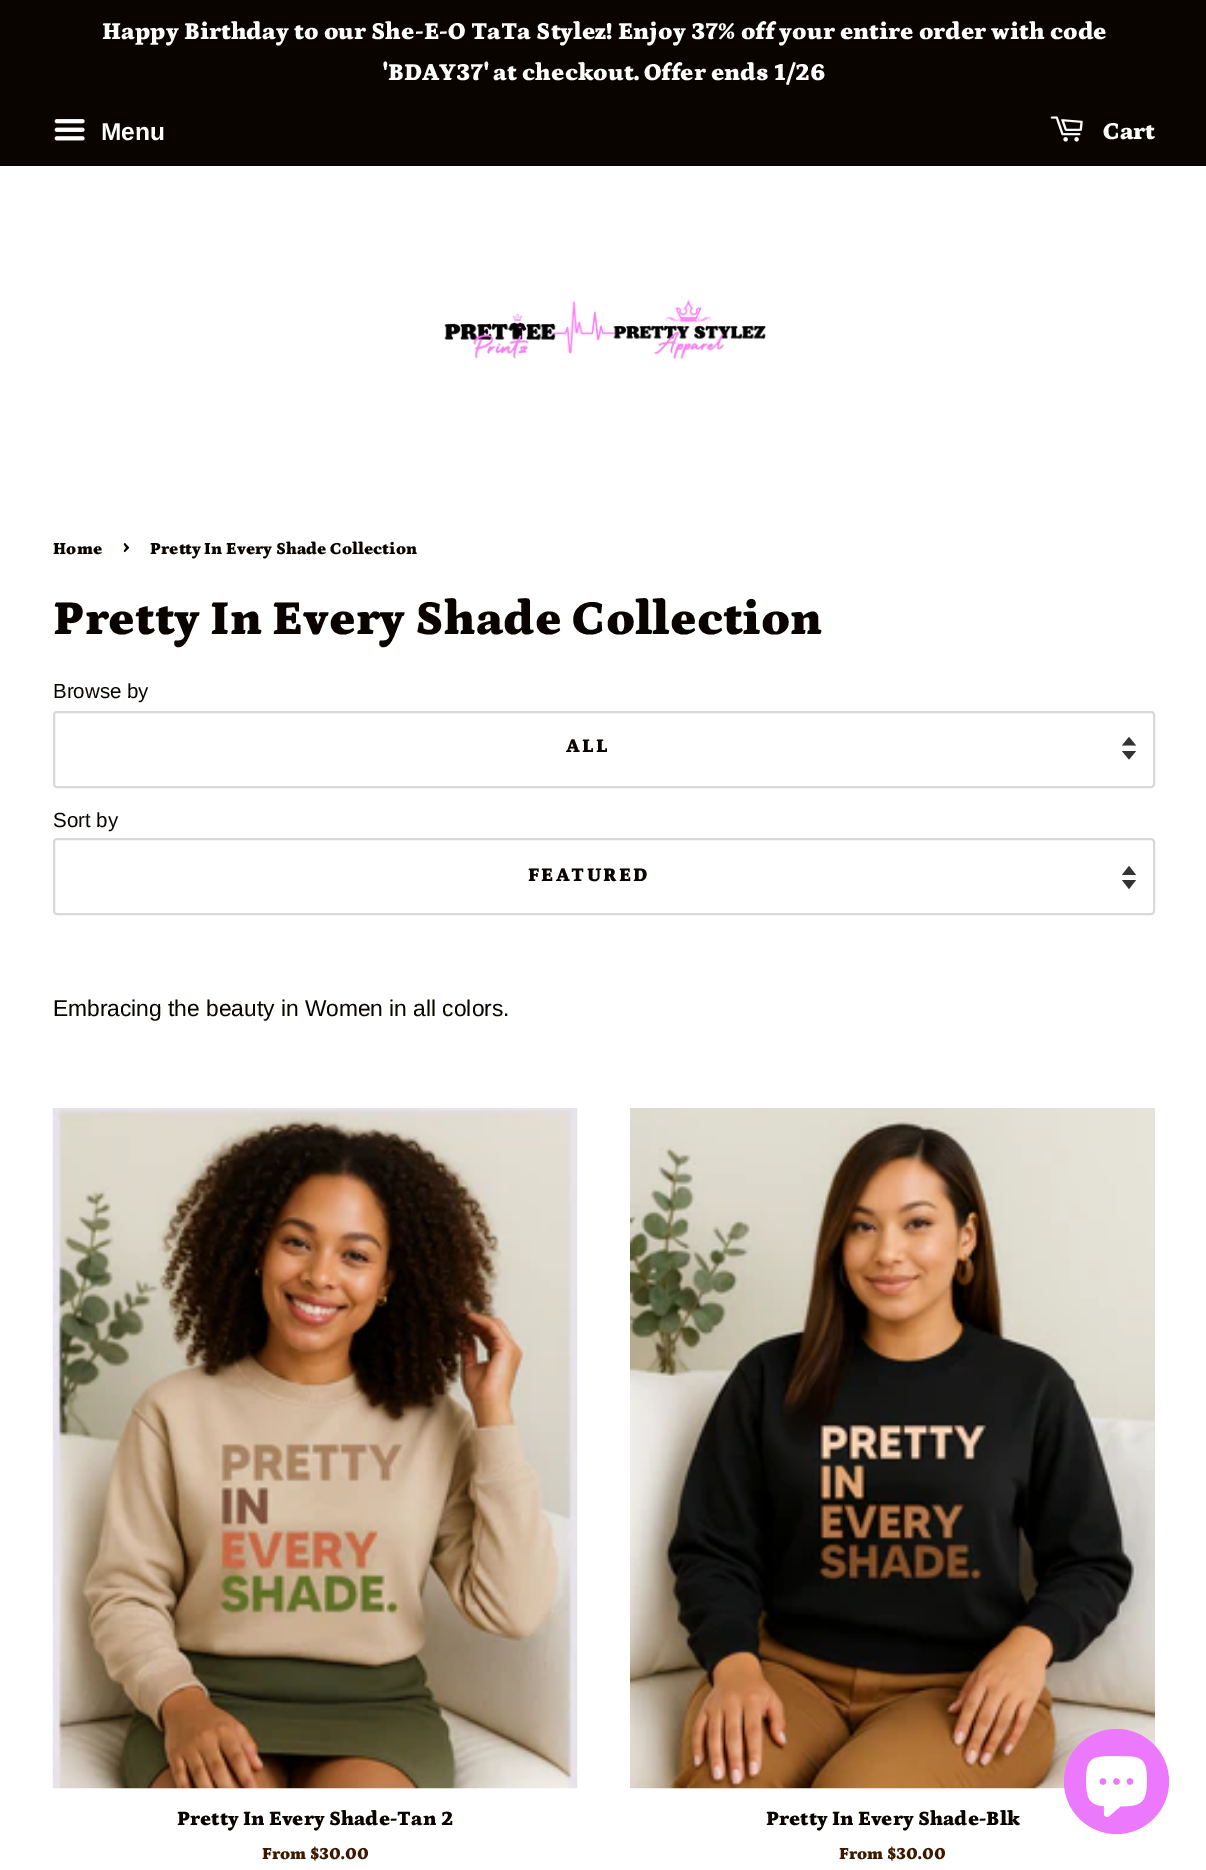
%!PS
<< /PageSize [1206 1870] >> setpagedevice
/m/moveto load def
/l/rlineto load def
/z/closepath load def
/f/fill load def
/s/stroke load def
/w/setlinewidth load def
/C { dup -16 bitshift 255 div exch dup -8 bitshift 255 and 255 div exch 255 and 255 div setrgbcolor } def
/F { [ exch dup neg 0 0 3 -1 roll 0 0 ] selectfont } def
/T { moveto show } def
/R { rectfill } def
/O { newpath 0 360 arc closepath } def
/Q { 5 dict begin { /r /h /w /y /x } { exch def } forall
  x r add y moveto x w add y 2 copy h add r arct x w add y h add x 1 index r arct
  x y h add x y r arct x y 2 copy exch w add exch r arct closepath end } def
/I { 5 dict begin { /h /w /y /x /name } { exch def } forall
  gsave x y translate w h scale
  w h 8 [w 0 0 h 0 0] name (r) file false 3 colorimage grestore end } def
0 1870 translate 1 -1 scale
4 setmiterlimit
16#FFFFFF C
0 0 1206 1870 R
16#0A0400 C
0 0 1206 166 R
/Petrona-Black 24.5 F
16#FFFFFF C
(Happy Birthday to our She-E-O TaTa Stylez! Enjoy 37% off your entire order with code) 102 39 T
('BDAY37' at checkout. Offer ends 1/26) 383 80 T
(1.rgb) 54 119 31 22 I
/Arimo-Bold 24.5 F
(Menu) 101 140 T
(2.rgb) 1050 116 33 26 I
/Petrona-Black 24.5 F
(Cart) 1103 139 T
(3.rgb) 444 298 322 62 I
/Petrona-Black 17 F
16#0A0400 C
(Home) 53 554 T
/Petrona-Black 24 F
(›) 123 554 T
/Petrona-Black 17 F
(Pretty In Every Shade Collection) 150 554 T
/Petrona-Black 49 F
(Pretty In Every Shade Collection) 53 634 T
/Arimo-Regular 20.5 F
(Browse by) 53 698 T
16#333333 C
1122 751 m 7 8.5 l 7 -8.5 l z 1129 737 m -7 8.5 l 14 0 l z f
16#DAD9D9 C
2 w
54 712 1100 75 3 Q s
/Petrona-Black 19.5 F
16#0A0400 C
566 752 m 2 0 (ALL) ashow
/Arimo-Regular 20.5 F
(Sort by) 53 827 T
16#333333 C
1122 880 m 7 9 l 7 -9 l z 1129 866 m -7 9 l 14 0 l z f
16#DAD9D9 C
54 839 1100 75 3 Q s
/Petrona-Black 19.5 F
16#0A0400 C
528 881 m 2 0 (FEATURED) ashow
/Arimo-Regular 22.75 F
(Embracing the beauty in Women in all colors.) 53 1016 T
(4.rgb) 52 1108 526 681 I
/Petrona-Black 20.5 F
(Pretty In Every Shade-Tan 2) 177 1825 T
/Petrona-Black 17 F
16#3D1800 C
(From $30.00) 262 1859 T
(5.rgb) 630 1108 525 681 I
/Petrona-Black 20.5 F
16#0A0400 C
(Pretty In Every Shade-Blk) 766 1825 T
/Petrona-Black 17 F
16#3D1800 C
(From $30.00) 839 1859 T
16#EC78FD C
1116.5 1781.5 52.5 O f
(6.rgb) 1086 1756 61 61 I
showpage
